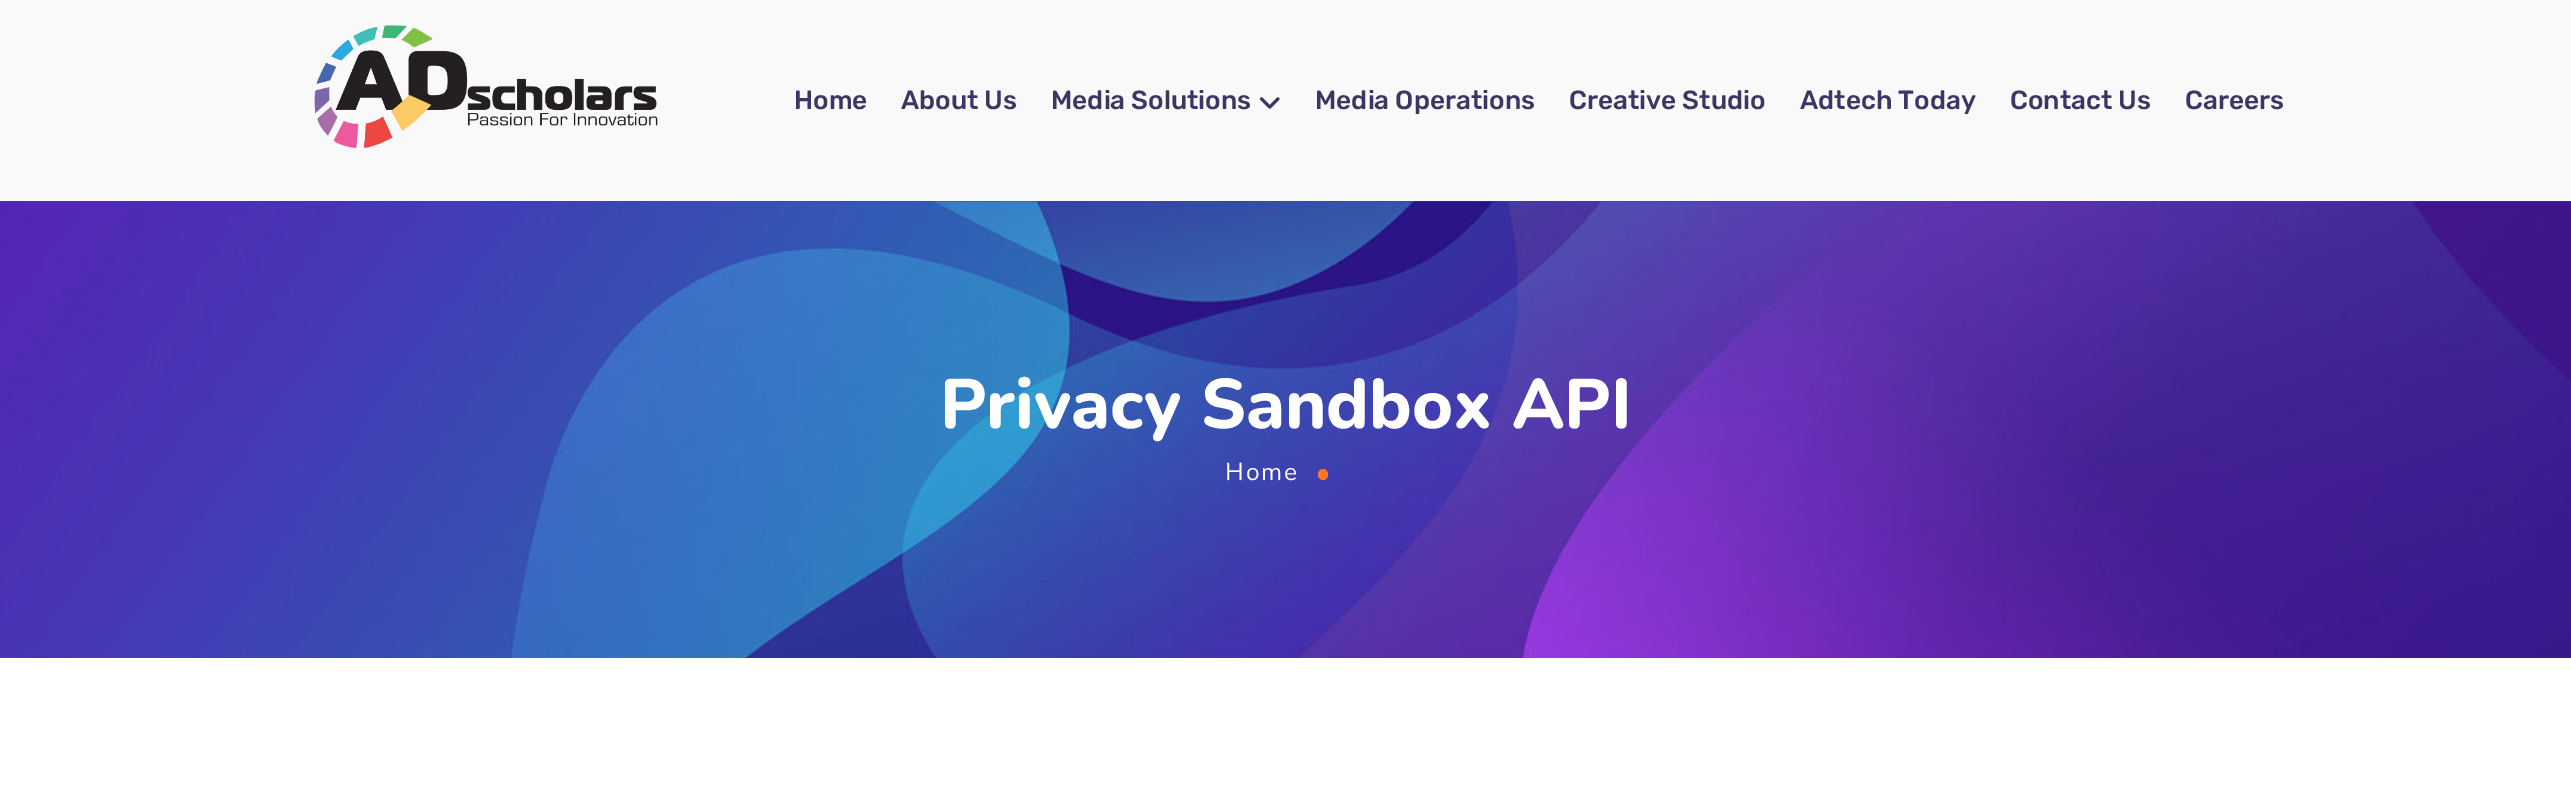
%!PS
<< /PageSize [2571 789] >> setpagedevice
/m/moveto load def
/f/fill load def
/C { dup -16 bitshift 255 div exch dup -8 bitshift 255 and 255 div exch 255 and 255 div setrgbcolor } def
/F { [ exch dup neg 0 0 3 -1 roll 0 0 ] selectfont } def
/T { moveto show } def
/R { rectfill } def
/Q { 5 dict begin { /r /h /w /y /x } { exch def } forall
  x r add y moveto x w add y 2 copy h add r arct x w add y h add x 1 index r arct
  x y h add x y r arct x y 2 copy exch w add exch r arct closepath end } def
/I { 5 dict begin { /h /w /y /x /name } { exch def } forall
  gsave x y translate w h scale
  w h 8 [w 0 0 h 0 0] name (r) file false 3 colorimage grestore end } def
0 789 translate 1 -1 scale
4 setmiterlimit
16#FFFFFF C
0 0 2571 789 R
16#F9F9F9 C
0 0 2571 201 R
(1.rgb) 314 25 344 123 I
/Rubik-Medium 26.25 F
16#3B3663 C
(Home) 794 109 T
(About Us) 901 109 T
(Media Solutions) 1051 109 T
(2.rgb) 1259 97 21 12 I
(Media Operations) 1315 109 T
(Creative Studio) 1569 109 T
(Adtech Today) 1800 109 T
(Contact Us) 2010 109 T
(Careers) 2185 109 T
16#423BB6 C
0 201 2571 1 R
(3.rgb) 0 201 2571 457 I
/Nunito-ExtraBold 70 F
16#FFFFFF C
(Privacy Sandbox API) 940 428 T
/Nunito-Regular 24.5 F
1225 480 m 2 0 (Home) ashow
16#FF7426 C
1318 469 10 11 5 Q f
showpage
